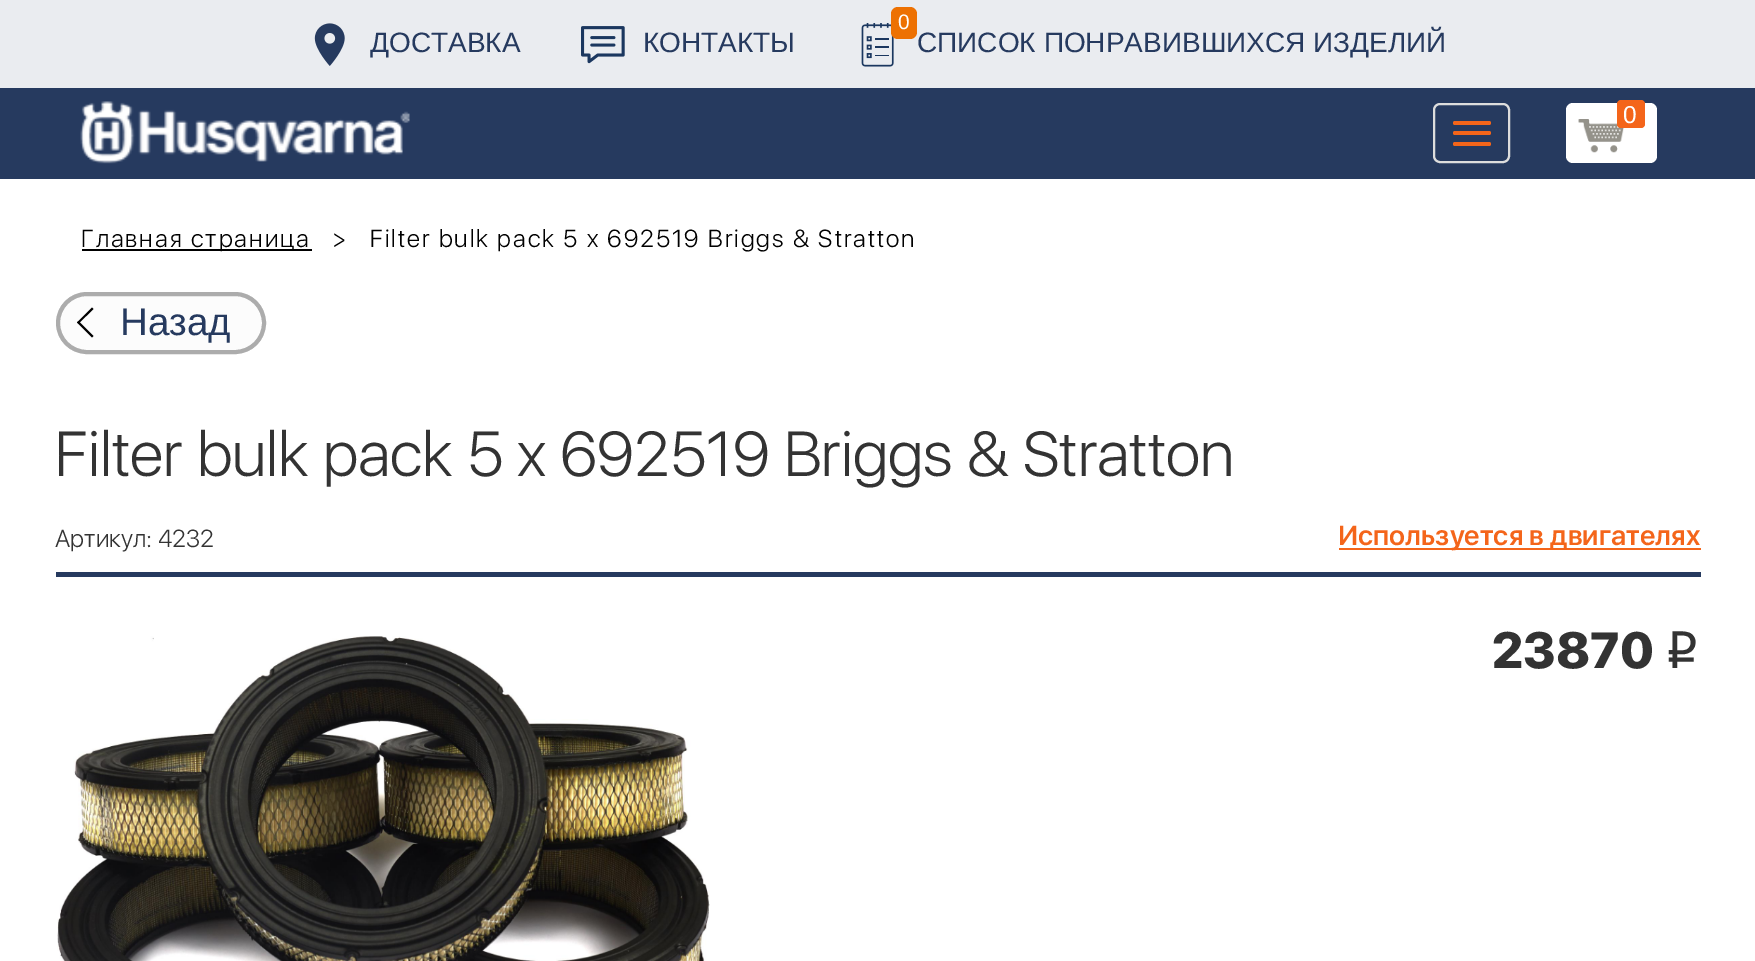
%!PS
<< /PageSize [1755 961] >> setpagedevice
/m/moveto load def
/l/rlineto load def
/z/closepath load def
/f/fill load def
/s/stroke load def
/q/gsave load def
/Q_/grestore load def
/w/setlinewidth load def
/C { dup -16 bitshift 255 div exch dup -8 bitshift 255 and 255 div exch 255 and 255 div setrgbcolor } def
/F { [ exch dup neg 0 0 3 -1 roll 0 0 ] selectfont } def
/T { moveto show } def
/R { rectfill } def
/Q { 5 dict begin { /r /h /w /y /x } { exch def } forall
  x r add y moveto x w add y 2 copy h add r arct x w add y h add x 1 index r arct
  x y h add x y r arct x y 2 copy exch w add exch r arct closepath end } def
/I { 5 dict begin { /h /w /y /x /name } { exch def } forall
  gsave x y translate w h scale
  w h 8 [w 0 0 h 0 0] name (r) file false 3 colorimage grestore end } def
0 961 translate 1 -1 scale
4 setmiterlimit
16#FFFFFF C
0 0 1755 961 R
16#EAECF0 C
0 0 1755 88 R
(1.rgb) 314 23 31 43 I
/LiberationSans-Regular 28 F
16#263A5F C
(ДОСТАВКА) 370 52 T
(2.rgb) 581 26 44 38 I
(КОНТАКТЫ) 643 52 T
(3.rgb) 861 23 33 44 I
16#ED7102 C
891 7 26 32 7 Q f
/LiberationSans-Regular 21 F
16#FFFFFF C
(0) 898 29 T
/LiberationSans-Regular 28 F
16#263A5F C
(СПИСОК ПОНРАВИВШИХСЯ ИЗДЕЛИЙ) 917 52 T
0 88 1755 91 R
(4.rgb) 80 101 330 63 I
16#DDDDDD C
2 w
1434 104 75 58 6 Q s
16#F4651A C
1453 121 38 4 2 Q f
1453 131 38 4 2 Q f
1453 142 38 4 2 Q f
16#FFFFFF C
1566 103 91 60 7 Q f
(5.rgb) 1578 119 46 34 I
16#F4651A C
1617 100 28 28 4 Q f
/LiberationSans-Regular 24.5 F
16#FFFFFF C
(0) 1623 123 T
16#000000 C
82 249 230 2 R
/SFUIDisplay-Light 24.5 F
81 247 m 1.95 0 (Главная страница) ashow
332 247 m 1.95 0 (>) ashow
370 247 m 1.95 0 (Filter bulk pack 5 x 692519 Briggs & Stratton) ashow
16#FCFCFC C
58 294 206 58 29 Q q f Q_
16#ACACAC C
4 w
s
16#000000 C
77 322.5 m 15 -15 l 1.5 1.5 l -15 14.5 l z f
77 322.5 m 1.5 -1.5 l 15 15 l -1.5 1.5 l z f
/LiberationSans-Regular 38.5 F
16#263A5F C
(Назад) 120 335 T
/SFUIDisplay-Light 63 F
16#333333 C
(Filter bulk pack 5 x 692519 Briggs & Stratton) 55 476 T
/SFUIDisplay-Light 24.5 F
(Артикул: 4232) 55 547 T
16#F4651A C
1339 548 362 2 R
/SFUIDisplay-SemiBold 28 F
(Используется в двигателях) 1338 545 T
16#263A5F C
56 572 1645 5 R
(6.rgb) 57 636 653 325 I
/SFUIDisplay-Black 52.5 F
16#333333 C
(23870) 1492 668 T
/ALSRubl-Regular 52.5 F
(i) 1664 668 T
showpage
